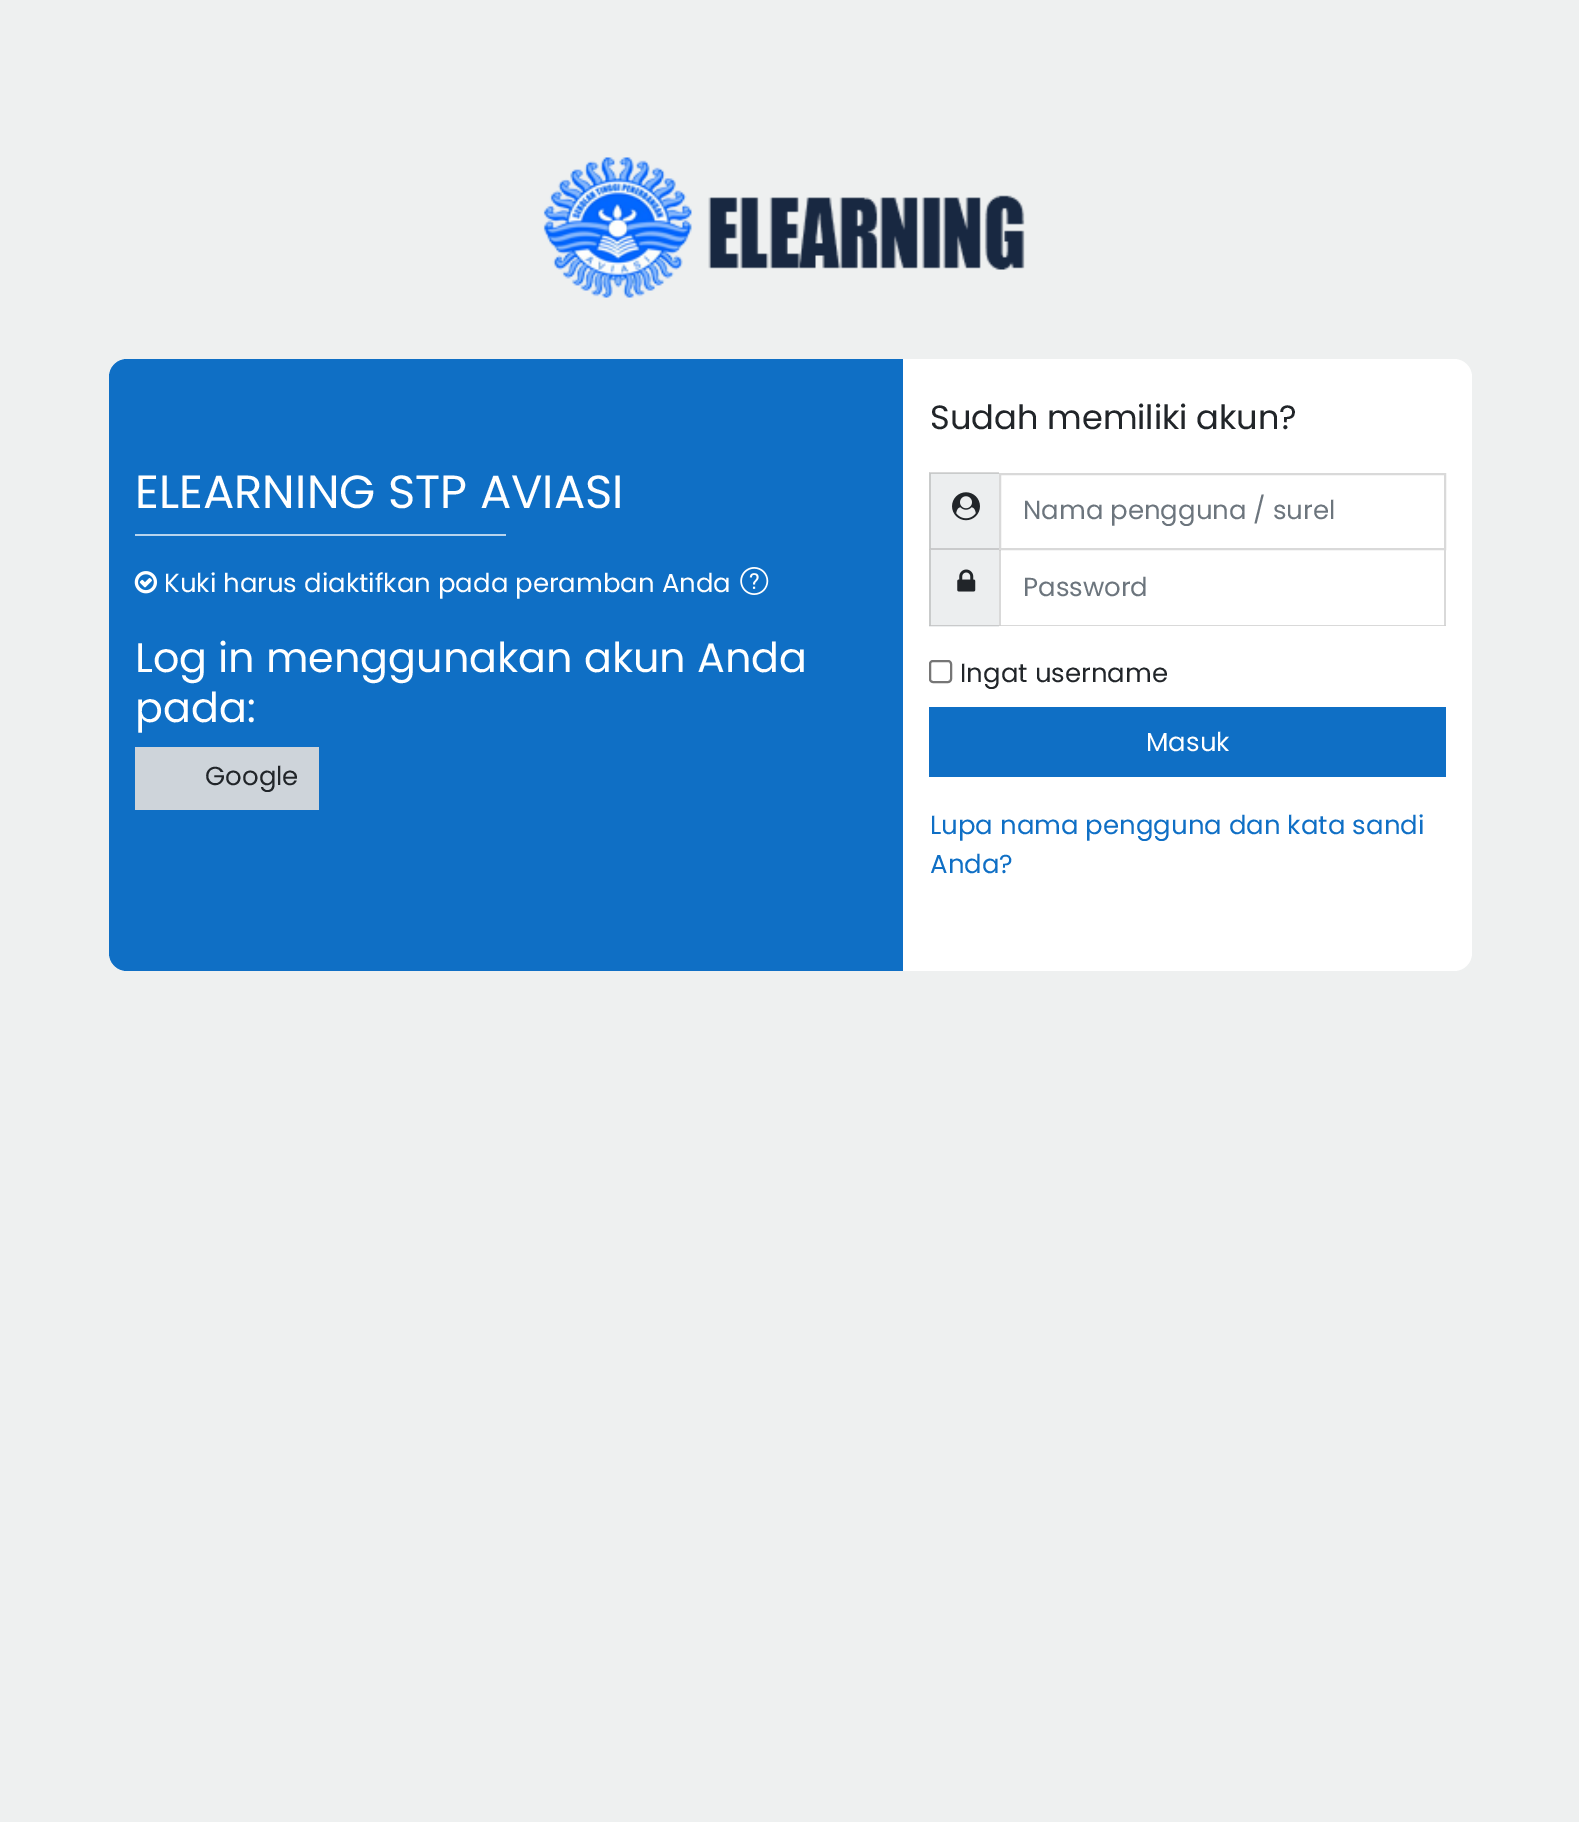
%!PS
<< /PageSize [1579 1822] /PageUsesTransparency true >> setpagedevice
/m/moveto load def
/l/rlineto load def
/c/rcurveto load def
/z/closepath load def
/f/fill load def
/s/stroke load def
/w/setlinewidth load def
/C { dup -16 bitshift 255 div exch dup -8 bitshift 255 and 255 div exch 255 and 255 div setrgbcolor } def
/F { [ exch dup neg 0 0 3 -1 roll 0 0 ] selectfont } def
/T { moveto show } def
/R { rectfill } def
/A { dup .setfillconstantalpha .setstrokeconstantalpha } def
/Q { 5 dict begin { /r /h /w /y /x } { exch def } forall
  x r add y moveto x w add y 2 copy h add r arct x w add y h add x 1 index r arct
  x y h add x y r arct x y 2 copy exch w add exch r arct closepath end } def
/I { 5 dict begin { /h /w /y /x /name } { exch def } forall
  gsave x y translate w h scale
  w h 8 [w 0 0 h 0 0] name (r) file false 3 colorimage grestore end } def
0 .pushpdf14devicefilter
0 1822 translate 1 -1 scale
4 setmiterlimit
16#EEF0F0 C
0 0 1579 1822 R
(1.rgb) 543 157 482 141 I
16#FFFFFF C
109 359 1363 612 18 Q f
16#0F6FC5 C
127 359 m 776 0 l 0 612 l -776 0 l -10 0 -18 -8 -18 -18 c 0 -576 l 0 -10 8 -18 18 -18 c z f
/Poppins-Regular 46.5 F
16#FFFFFF C
(ELEARNING STP AVIASI) 135 508 T
16#B7D4EE C
135 534 371 2 R
(2.rgb) 134 571 24 23 I
/Poppins-Regular 26 F
16#FFFFFF C
(Kuki harus diaktifkan pada peramban Anda) 164 592 T
(3.rgb) 740 567 29 28 I
/Poppins-Regular 41.3 F
(Log in menggunakan akun Anda) 135 672 T
(pada:) 135 722 T
16#CED4DA C
135 747 184 63 R
/Poppins-Regular 26 F
16#212529 C
(Google) 205 785 T
/Poppins-Regular 33.6 F
(Sudah memiliki akun?) 930 429 T
16#ECEEEF C
929 473 70 154 R
0.15 A
16#000000 C
929 472 m 70 0 l 0 2 l -68 0 l z f
1 A
16#C9CACB C
999 550 m -70 0 l 2 -2 l 68 0 l z f
0.15 A
16#000000 C
929 550 m 0 -78 l 2 2 l 0 74 l z f
1 A
(4.rgb) 952 492 28 29 I
16#D9D9D9 C
2 w
1000 474 445 75 rectstroke
/Poppins-Regular 26 F
16#6C757D C
(Nama pengguna / surel) 1023 519 T
16#C9CACB C
999 626 m -70 0 l 2 -1 l 68 0 l z f
0.15 A
16#000000 C
929 626 m 0 -76 l 2 0 l 0 75 l z f
1 A
(5.rgb) 957 569 19 23 I
16#D9D9D9 C
1446 550 m 0 76 l -2 -1 l 0 -75 l z f
0.15 A
16#000000 C
1446 626 m -447 0 l 2 -1 l 443 0 l z f
999 626 m 0 -76 l 2 0 l 0 75 l z f
1 A
16#6C757D C
(Password) 1023 596 T
16#767676 C
930 661 21 21 3 Q s
16#212529 C
(Ingat username) 960 682 T
16#0F6FC5 C
929 707 517 70 R
16#FFFFFF C
(Masuk) 1146 751 T
16#0F6FC5 C
(Lupa nama pengguna dan kata sandi) 930 834 T
(Anda?) 930 873 T
.poppdf14devicefilter showpage
